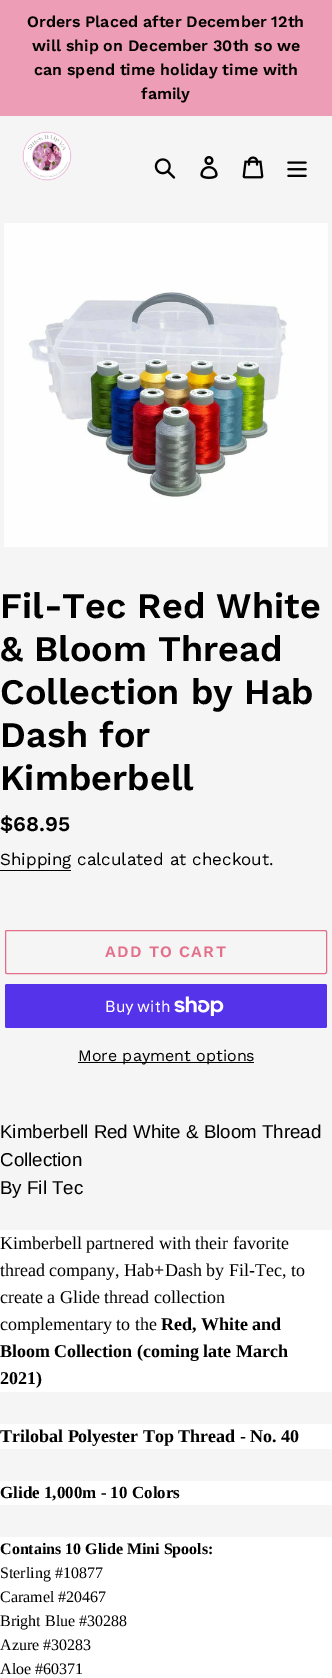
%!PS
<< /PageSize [332 1678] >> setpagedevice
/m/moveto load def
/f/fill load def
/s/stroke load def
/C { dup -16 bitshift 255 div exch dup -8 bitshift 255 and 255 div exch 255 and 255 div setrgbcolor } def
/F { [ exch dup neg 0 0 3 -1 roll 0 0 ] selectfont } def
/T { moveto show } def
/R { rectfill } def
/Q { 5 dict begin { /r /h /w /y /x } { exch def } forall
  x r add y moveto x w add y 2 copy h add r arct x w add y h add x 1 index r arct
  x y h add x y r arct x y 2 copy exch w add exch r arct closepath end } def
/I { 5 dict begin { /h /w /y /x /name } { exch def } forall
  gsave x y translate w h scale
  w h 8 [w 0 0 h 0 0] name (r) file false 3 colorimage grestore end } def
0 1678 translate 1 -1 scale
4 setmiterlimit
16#F5F5F5 C
0 0 332 1678 R
16#ED9DB5 C
0 0 332 116 R
/WorkSans-SemiBold 16 F
16#000000 C
(Orders Placed after December 12th) 27 27 T
(will ship on December 30th so we) 32 51 T
(can spend time holiday time with) 34 75 T
(family) 141 99 T
(1.rgb) 22 131 50 50 I
(2.rgb) 154 158 22 21 I
(3.rgb) 200 156 18 23 I
(4.rgb) 242 156 22 23 I
(5.rgb) 287 161 20 16 I
(6.rgb) 4 223 324 324 I
/WorkSans-SemiBold 36 F
(Fil-Tec Red White) 0 618 T
(& Bloom Thread) 0 661 T
(Collection by Hab) 0 704 T
(Dash for) 0 747 T
(Kimberbell) 0 790 T
/WorkSans-SemiBold 21 F
($68.95) 0 831 T
/WorkSans-Regular 17 F
(Shipping calculated at checkout.) 0 865 T
0 870 71 1 R
16#E3708A C
5.5 930.5 321 43 1.5 Q s
/WorkSans-SemiBold 16 F
105 957 m 1.25 0 (ADD TO CART) ashow
16#5433EB C
5 984 322 44 2 Q f
/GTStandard-Regular 16 F
16#FFFFFF C
(Buy with) 105 1012 T
(7.rgb) 174 996 50 20 I
16#000000 C
78 1062 176 1 R
/WorkSans-Regular 16 F
(More payment options) 78 1061 T
/LiberationSans-Regular 18.7 F
(Kimberbell Red White & Bloom Thread) 0 1138 T
(Collection) 0 1166 T
(By Fil Tec) 0 1194 T
16#FFFFFF C
0 1230 332 162 R
/LiberationSerif-Regular 18 F
16#000000 C
(Kimberbell partnered with their favorite) 0 1249 T
(thread company, Hab+Dash by Fil-Tec, to) 0 1276 T
(create a Glide thread collection) 0 1303 T
(complementary to the) 0 1330 T
/LiberationSerif-Bold 18 F
(Red, White and) 161 1330 T
(Bloom Collection \(coming late March) 0 1357 T
(2021\)) 0 1384 T
16#FFFFFF C
0 1424 332 25 R
16#000000 C
(Trilobal Polyester Top Thread - No. 40) 0 1442 T
16#FFFFFF C
0 1481 332 24 R
/LiberationSerif-Bold 17 F
16#000000 C
(Glide 1,000m - 10 Colors) 0 1498 T
16#FFFFFF C
0 1537 332 141 R
/LiberationSerif-Bold 16 F
16#000000 C
(Contains 10 Glide Mini Spools:) 0 1554 T
/LiberationSerif-Regular 16 F
(Sterling #10877) 0 1578 T
(Caramel #20467) 0 1602 T
(Bright Blue #30288) 0 1626 T
(Azure #30283) 0 1650 T
(Aloe #60371) 0 1674 T
showpage
